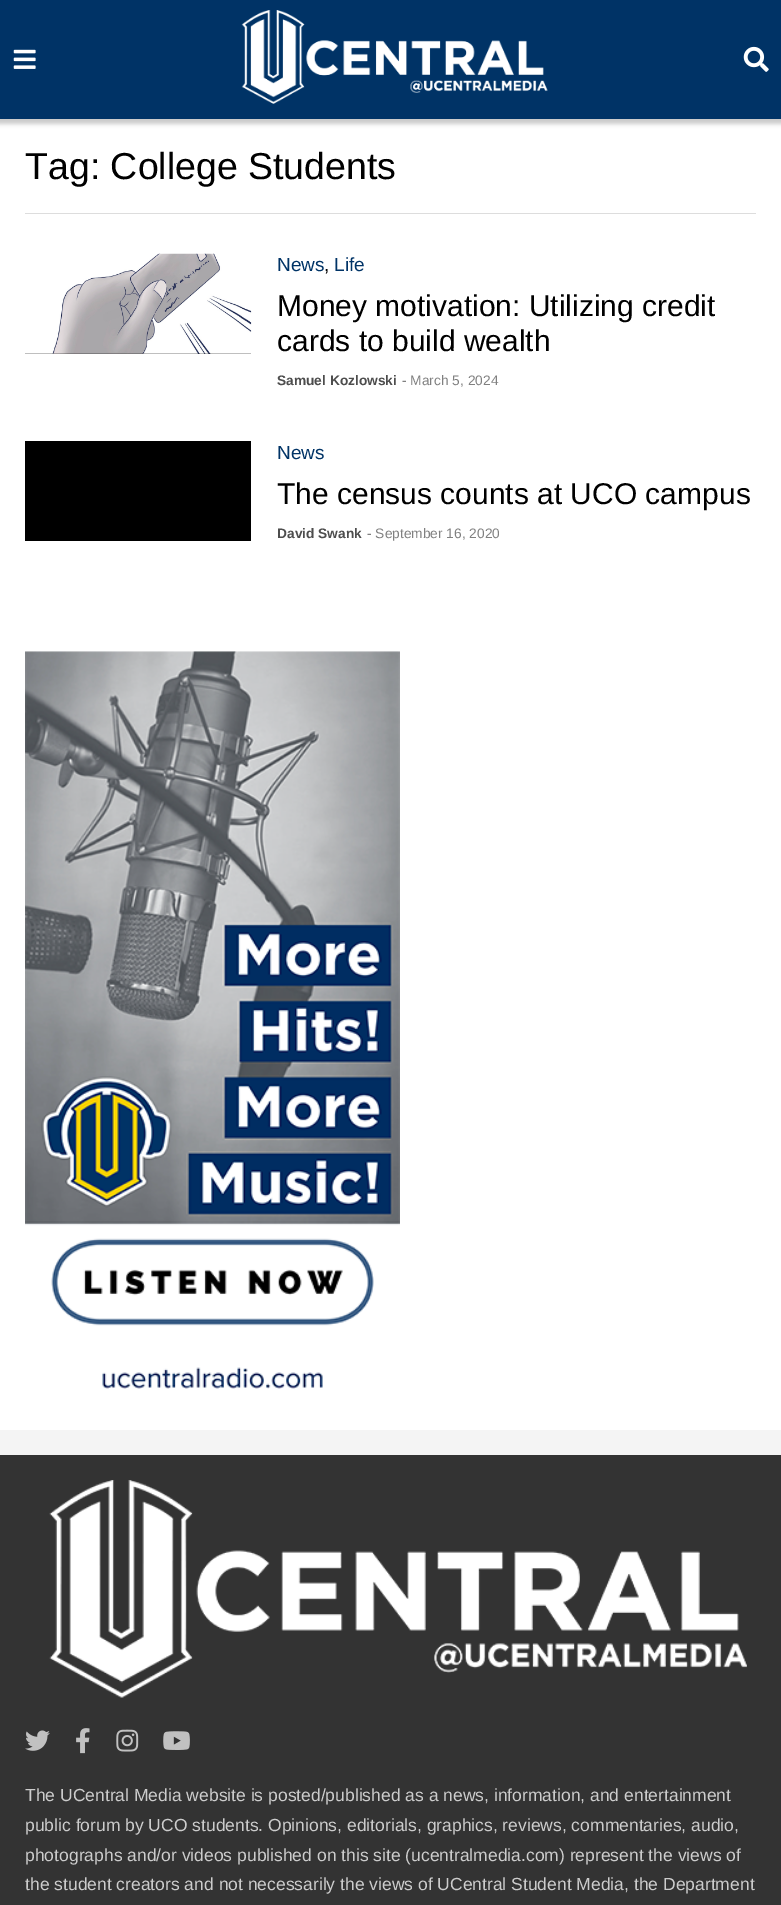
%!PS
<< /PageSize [781 1905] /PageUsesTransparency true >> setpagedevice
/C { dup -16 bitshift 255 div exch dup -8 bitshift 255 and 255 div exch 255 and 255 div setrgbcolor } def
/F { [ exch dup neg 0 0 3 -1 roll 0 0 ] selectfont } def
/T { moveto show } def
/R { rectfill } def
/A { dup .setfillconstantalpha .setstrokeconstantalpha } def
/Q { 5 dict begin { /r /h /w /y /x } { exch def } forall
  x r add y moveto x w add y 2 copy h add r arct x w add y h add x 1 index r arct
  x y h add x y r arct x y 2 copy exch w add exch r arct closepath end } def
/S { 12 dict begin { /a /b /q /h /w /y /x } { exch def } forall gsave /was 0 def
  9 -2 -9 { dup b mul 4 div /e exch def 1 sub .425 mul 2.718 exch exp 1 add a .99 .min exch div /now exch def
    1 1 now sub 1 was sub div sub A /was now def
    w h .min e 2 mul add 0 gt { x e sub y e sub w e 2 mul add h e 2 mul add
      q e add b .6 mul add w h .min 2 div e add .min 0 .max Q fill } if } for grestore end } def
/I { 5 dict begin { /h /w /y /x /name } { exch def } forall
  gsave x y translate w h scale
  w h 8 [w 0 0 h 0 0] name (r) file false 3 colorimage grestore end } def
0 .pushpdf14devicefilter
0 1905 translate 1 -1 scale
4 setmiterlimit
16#F4F4F4 C
0 0 781 1905 R
16#FFFFFF C
0 119 781 1311 R
16#000000 C
-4 -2 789 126 0 2 .2 S
16#003366 C
0 0 781 119 R
(1.rgb) 13 49 23 20 I
(2.rgb) 241 10 307 94 I
(3.rgb) 743 46 26 26 I
16#DDDDDD C
25 213 731 1 R
/LiberationSans-Regular 37.5 F
16#000000 C
(Tag: College Students) 25 179 T
(4.rgb) 25 253 227 101 I
/LiberationSans-Regular 19 F
16#003366 C
(News) 277 271 T
16#000000 C
(,) 324 271 T
16#003366 C
(Life) 334 271 T
/LiberationSans-Regular 30 F
16#000000 C
(Money motivation: Utilizing credit) 277 316 T
(cards to build wealth) 277 351 T
/LiberationSans-Bold 13.75 F
16#4D4D4D C
(Samuel Kozlowski) 277 385 T
/LiberationSans-Regular 13.75 F
16#808080 C
(- March 5, 2024) 402 385 T
16#000000 C
25 441 226 100 R
/LiberationSans-Regular 19 F
16#003366 C
(News) 277 459 T
/LiberationSans-Regular 30 F
16#000000 C
(The census counts at UCO campus) 277 504 T
/LiberationSans-Bold 13.75 F
16#4D4D4D C
(David Swank) 277 538 T
/LiberationSans-Regular 13.75 F
16#808080 C
(- September 16, 2020) 367 538 T
(5.rgb) 25 651 375 738 I
16#333333 C
0 1455 781 450 R
(6.rgb) 49 1480 698 218 I
(7.rgb) 25 1730 25 21 I
(8.rgb) 76 1728 14 26 I
(9.rgb) 116 1729 23 23 I
(10.rgb) 163 1731 27 19 I
/LiberationSans-Regular 17.5 F
16#CCCCCC C
(The UCentral Media website is posted/published as a news, information, and entertainment) 25 1801 T
(public forum by UCO students. Opinions, editorials, graphics, reviews, commentaries, audio,) 25 1831 T
(photographs and/or videos published on this site \(ucentralmedia.com\) represent the views of) 25 1861 T
(the student creators and not necessarily the views of UCentral Student Media, the Department) 25 1890 T
.poppdf14devicefilter showpage
